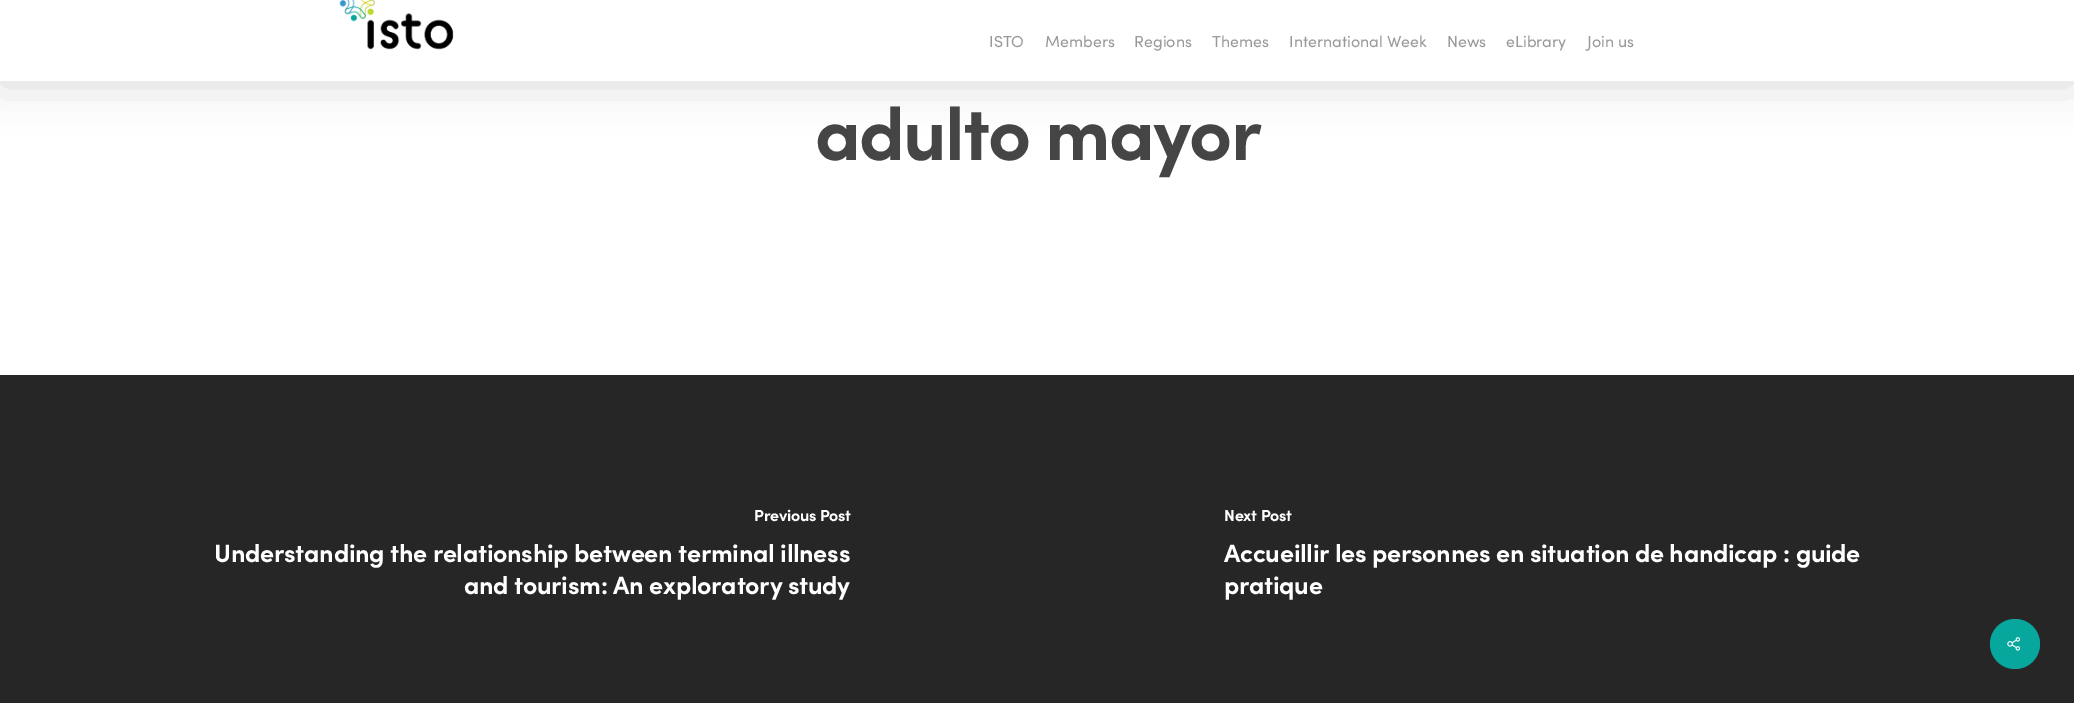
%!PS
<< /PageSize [2074 703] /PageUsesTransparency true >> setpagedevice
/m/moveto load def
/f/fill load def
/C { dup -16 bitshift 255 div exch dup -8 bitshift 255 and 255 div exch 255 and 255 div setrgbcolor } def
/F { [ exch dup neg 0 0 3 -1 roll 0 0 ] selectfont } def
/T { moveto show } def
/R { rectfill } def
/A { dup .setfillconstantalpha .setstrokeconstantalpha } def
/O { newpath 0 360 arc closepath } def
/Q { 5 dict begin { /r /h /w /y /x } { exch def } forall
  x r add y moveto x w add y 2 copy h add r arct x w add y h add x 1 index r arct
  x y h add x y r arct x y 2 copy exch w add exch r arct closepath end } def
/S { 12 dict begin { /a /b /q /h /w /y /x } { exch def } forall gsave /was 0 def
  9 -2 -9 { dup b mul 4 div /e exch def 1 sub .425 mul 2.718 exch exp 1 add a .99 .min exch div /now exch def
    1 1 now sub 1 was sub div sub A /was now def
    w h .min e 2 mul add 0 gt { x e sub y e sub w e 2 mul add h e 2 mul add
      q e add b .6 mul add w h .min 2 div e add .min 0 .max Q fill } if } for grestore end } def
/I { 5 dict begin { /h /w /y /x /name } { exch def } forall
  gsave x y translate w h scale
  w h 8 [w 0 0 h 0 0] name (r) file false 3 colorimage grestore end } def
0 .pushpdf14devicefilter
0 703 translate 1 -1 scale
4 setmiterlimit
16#FFFFFF C
0 0 2074 703 R
16#000000 C
0 -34 2074 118 0 22.5 .15 S
16#FFFFFF C
0 0 2074 81 R
(1.rgb) 339 0 115 50 I
/Sofia-Regular 16 F
16#999999 C
(ISTO) 989 47 T
(Members) 1045 47 T
(Regions) 1134 47 T
(Themes) 1212 47 T
(International Week) 1289 47 T
(News) 1447 47 T
(eLibrary) 1506 47 T
(Join us) 1587 47 T
/Sofia-Bold 75 F
16#454545 C
815 160 m -1.9 0 (adulto mayor) ashow
16#262626 C
0 375 2074 328 R
/Sofia-Bold 16 F
16#FFFFFF C
754 521 m -.25 0 (Previous Post) ashow
/Sofia-Bold 25 F
214 562 m -.25 0 (Understanding the relationship between terminal illness) ashow
464 594 m -.25 0 (and tourism: An exploratory study) ashow
/Sofia-Bold 16 F
1224 521 m -.25 0 (Next Post) ashow
/Sofia-Bold 25 F
1224 562 m -.25 0 (Accueillir les personnes en situation de handicap : guide) ashow
1224 594 m -.25 0 (pratique) ashow
16#08A79E C
2015 644 25 O f
(2.rgb) 2007 637 13 14 I
.poppdf14devicefilter showpage
